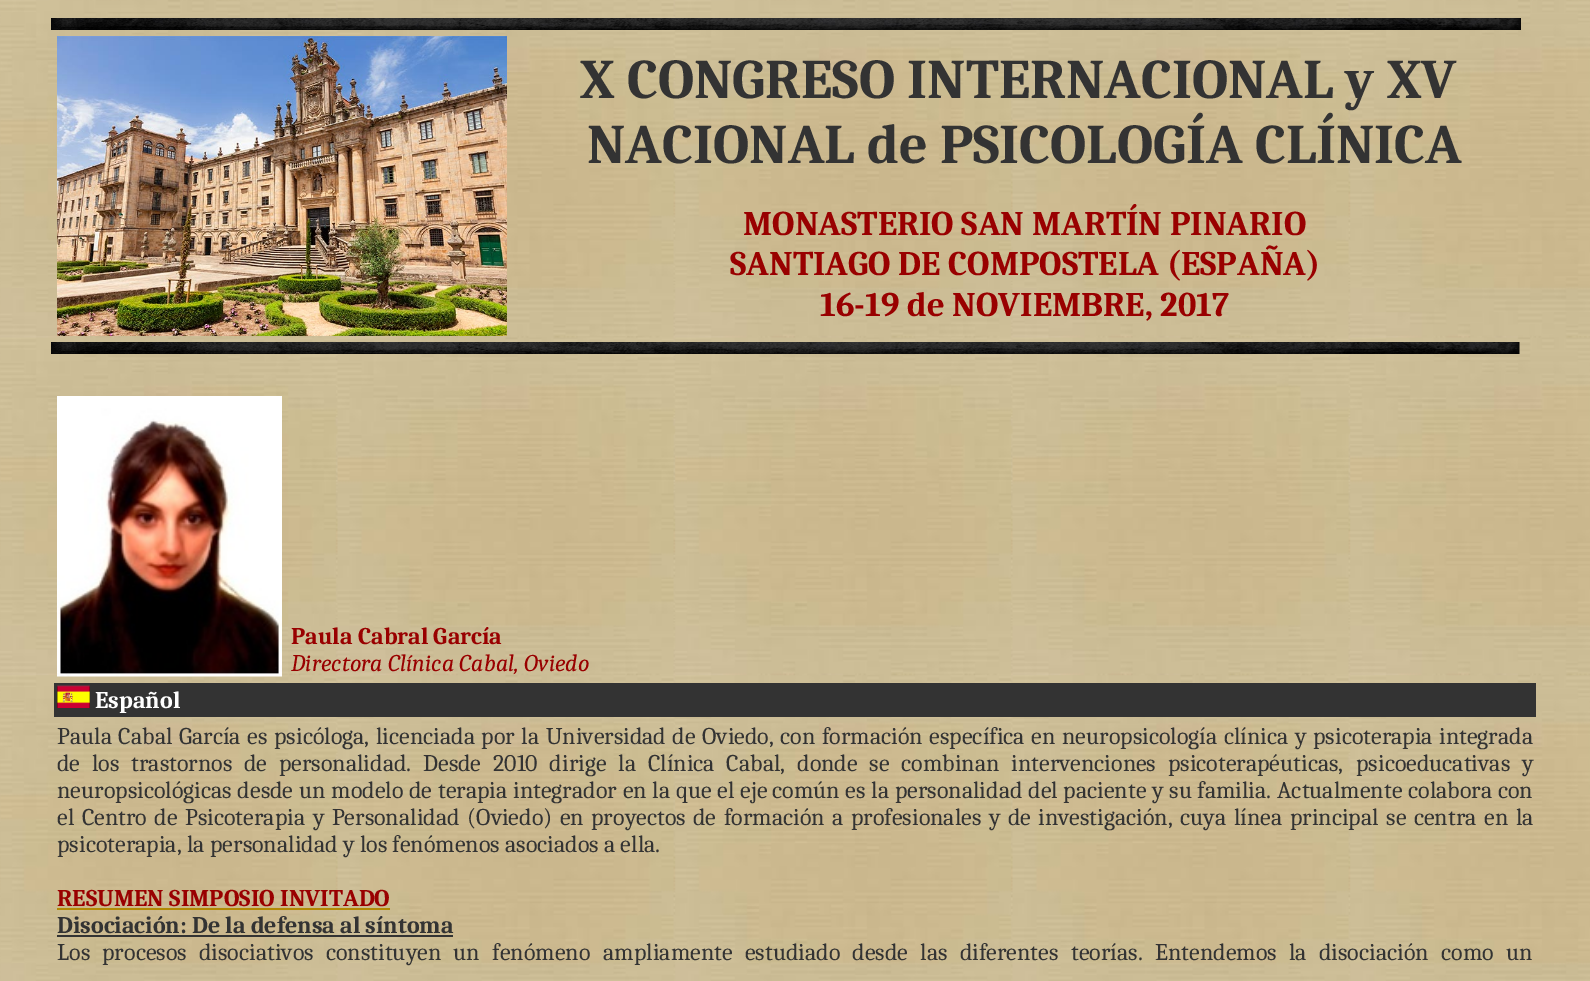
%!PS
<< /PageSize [1590 981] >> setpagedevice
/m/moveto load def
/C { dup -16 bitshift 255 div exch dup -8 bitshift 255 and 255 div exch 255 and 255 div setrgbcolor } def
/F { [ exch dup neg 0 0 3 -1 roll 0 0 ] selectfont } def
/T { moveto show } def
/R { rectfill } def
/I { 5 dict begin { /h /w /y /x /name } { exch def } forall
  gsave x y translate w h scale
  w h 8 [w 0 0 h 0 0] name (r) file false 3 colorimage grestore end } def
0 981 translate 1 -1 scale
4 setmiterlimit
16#FFFFFF C
0 0 1590 981 R
(1.rgb) 0 0 1590 981 I
(2.rgb) 51 18 1470 12 I
(3.rgb) 57 36 450 300 I
/Caladea-Bold 56 F
16#333333 C
(X CONGRESO INTERNACIONAL y XV) 580 98 T
(NACIONAL de PSICOLOGÍA CLÍNICA) 587 163 T
/Caladea-Bold 34.6 F
16#990000 C
(MONASTERIO SAN MARTÍN PINARIO) 743 235 T
(SANTIAGO DE COMPOSTELA \(ESPAÑA\)) 730 275 T
(16-19 de NOVIEMBRE, 2017) 820 316 T
(4.rgb) 51 342 1469 12 I
(5.rgb) 57 396 225 281 I
/Caladea-Bold 24 F
(Paula Cabral García) 291 644 T
/Caladea-Italic 24 F
(Directora Clínica Cabal, Oviedo) 291 671 T
16#333333 C
54 683 1482 34 R
(6.rgb) 57 685 33 23 I
/Caladea-Bold 24 F
16#FFFFFF C
(Español) 95 708 T
/Caladea-Regular 24 F
16#333333 C
57 744 m 1.25 0 32 (Paula Cabal García es) widthshow
274 744 m 1.25 0 32 (psicóloga, licenciada por la Universidad de) widthshow
702 744 m 1.25 0 32 (Oviedo, con formación específica en) widthshow
1062 744 m 1.25 0 32 (neuropsicología clínica y psicoterapia) widthshow
(integrada) 1439 744 T
57 771 m 6.5 0 32 (de los trastornos de personalidad.) widthshow
423 771 m 6.5 0 32 (Desde 2010 dirige la Clínica Cabal, donde se) widthshow
901 771 m 6.5 0 32 (combinan intervenciones psicoterapéuticas,) widthshow
1356 771 m 6.5 0 32 (psicoeducativas y) widthshow
57 798 m .5 0 32 (neuropsicológicas desde un) widthshow
331 798 m .5 0 32 (modelo de terapia integrador en la que el eje) widthshow
772 798 m .5 0 32 (común es la personalidad del paciente y su) widthshow
1197 798 m .5 0 32 (familia. Actualmente colabora con) widthshow
57 825 m 2.25 0 32 (el Centro de) widthshow
185 825 m 2.25 0 32 (Psicoterapia y Personalidad \(Oviedo\) en) widthshow
591 825 m 2.25 0 32 (proyectos de formación a profesionales y de) widthshow
1038 825 m 2.25 0 32 (investigación, cuya línea principal se centra) widthshow
1484 825 m 2.25 0 32 (en la) widthshow
(psicoterapia, la personalidad y los fenómenos asociados a ella.) 57 852 T
/Caladea-Bold 24 F
16#990000 C
(RESUMEN SIMPOSIO INVITADO) 57 906 T
16#B18904 C
57 908 333 2 R
16#333333 C
(Disociación: De la defensa al síntoma) 57 933 T
57 935 396 2 R
/Caladea-Regular 24 F
(Los) 57 960 T
102 960 m 7 0 32 (procesos disociativos constituyen un fenómeno) widthshow
603 960 m 7 0 32 (ampliamente estudiado desde las diferentes) widthshow
1071 960 m 7 0 32 (teorías. Entendemos la disociación como un) widthshow
showpage
